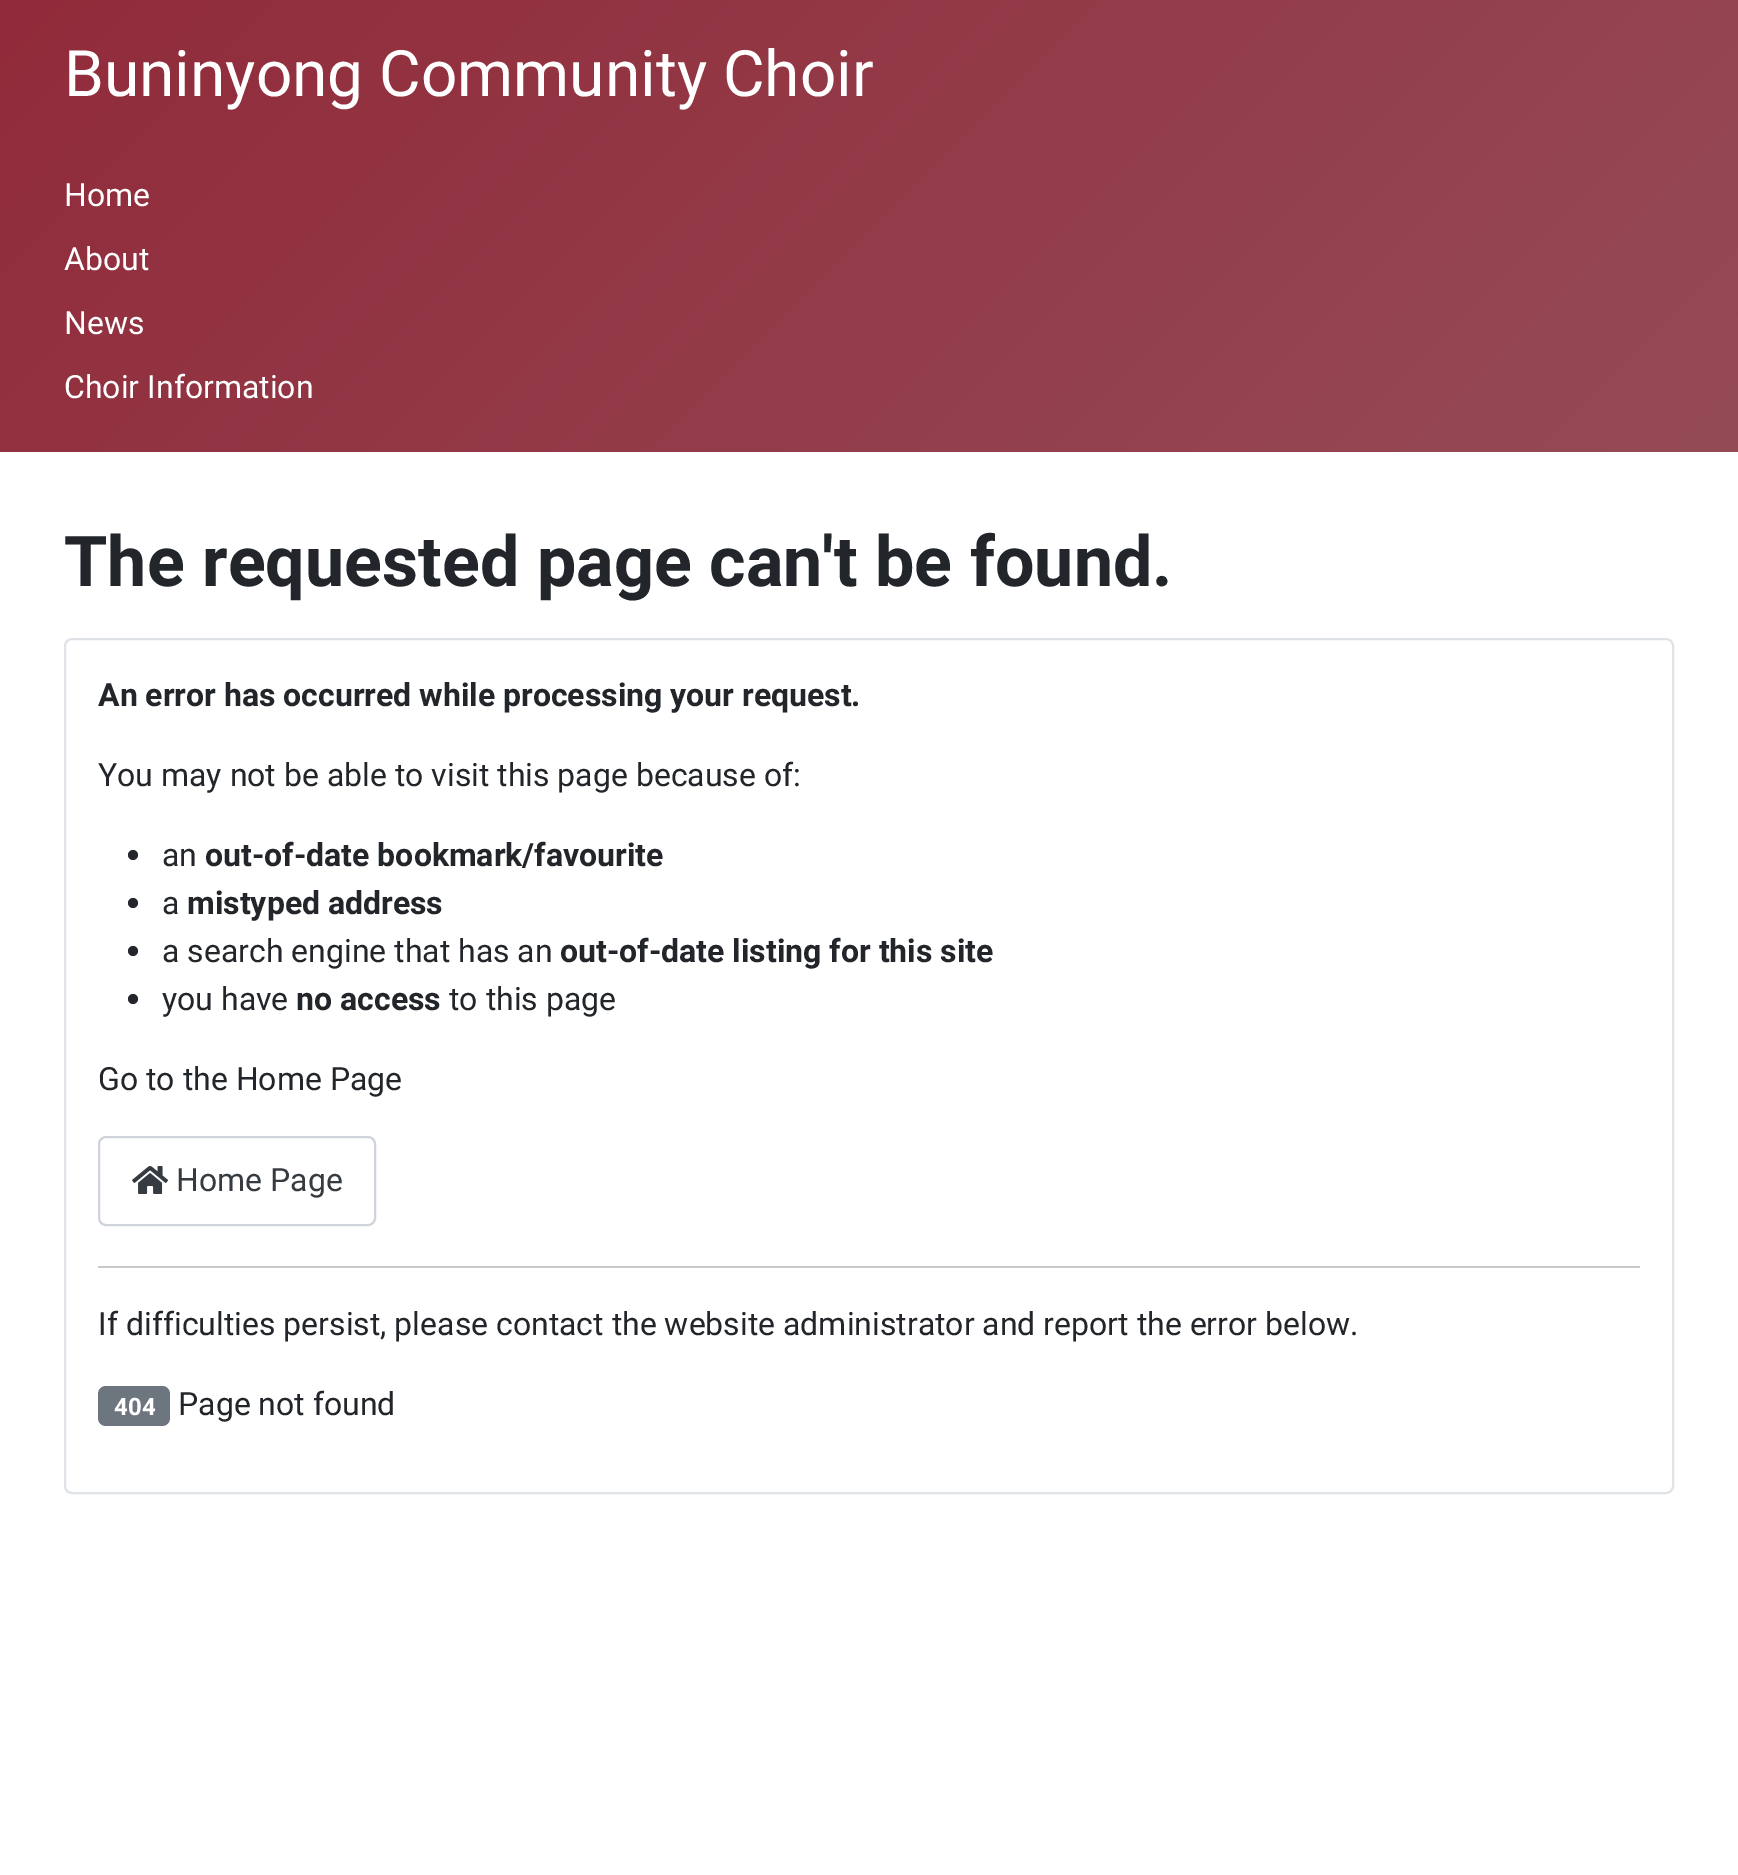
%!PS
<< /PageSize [1738 1875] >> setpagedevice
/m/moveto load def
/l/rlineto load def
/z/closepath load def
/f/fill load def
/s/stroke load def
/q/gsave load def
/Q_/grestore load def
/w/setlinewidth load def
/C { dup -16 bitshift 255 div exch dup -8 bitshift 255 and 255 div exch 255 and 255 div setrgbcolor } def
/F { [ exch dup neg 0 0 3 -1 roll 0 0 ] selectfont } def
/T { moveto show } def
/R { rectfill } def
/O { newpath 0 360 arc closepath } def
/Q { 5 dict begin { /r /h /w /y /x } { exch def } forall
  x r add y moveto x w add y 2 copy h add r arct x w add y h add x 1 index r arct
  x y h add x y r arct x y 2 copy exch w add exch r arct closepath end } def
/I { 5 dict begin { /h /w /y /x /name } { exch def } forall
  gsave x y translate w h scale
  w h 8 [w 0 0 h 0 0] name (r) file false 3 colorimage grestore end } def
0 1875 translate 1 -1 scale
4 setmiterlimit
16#FFFFFF C
0 0 1738 1875 R
q 0 0 m 1738 0 l 0 452 l -1738 0 l z clip newpath
<< /ShadingType 2 /ColorSpace /DeviceRGB /Coords [322 -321 1417 774] /Extend [true true] /Function << /FunctionType 2 /Domain [0 1] /C0 [.569 .169 .231] /C1 [.584 .294 .337] /N 1 >> >> shfill Q_
/Roboto-Regular 64 F
(Buninyong Community Choir) 64 96 T
/Roboto-Regular 32 F
(Home) 64 206 T
(About) 64 270 T
(News) 64 334 T
(Choir Information) 64 398 T
/Roboto-Bold 70.1 F
16#22262A C
(The requested page can't be found.) 64 586 T
16#DFE3E7 C
2 w
65 639 1608 854 7 Q s
/Roboto-Bold 32 F
16#22262A C
(An error has occurred while processing your request.) 98 706 T
/Roboto-Regular 32 F
(You may not be able to visit this page because of:) 98 786 T
133 855 5 O f
(an) 162 866 T
/Roboto-Bold 32 F
(out-of-date bookmark/favourite) 205 866 T
133 903 5 O f
/Roboto-Regular 32 F
(a) 162 914 T
/Roboto-Bold 32 F
(mistyped address) 187 914 T
133 951 5 O f
/Roboto-Regular 32 F
(a search engine that has an) 162 962 T
/Roboto-Bold 32 F
(out-of-date listing for this site) 560 962 T
133 999 5 O f
/Roboto-Regular 32 F
(you have) 162 1010 T
/Roboto-Bold 32 F
(no access) 296 1010 T
/Roboto-Regular 32 F
(to this page) 449 1010 T
(Go to the Home Page) 98 1090 T
16#CED4DA C
99 1137 276 88 7 Q s
(1.rgb) 132 1166 36 28 I
16#353B41 C
(Home Page) 176 1191 T
16#C8C9CA C
98 1266 1542 2 R
16#22262A C
(If difficulties persist, please contact the website administrator and report the error below.) 98 1335 T
16#6D757E C
98 1386 72 40 8 Q f
/Roboto-Bold 24 F
16#FFFFFF C
(404) 114 1415 T
/Roboto-Regular 32 F
16#22262A C
(Page not found) 178 1415 T
showpage
